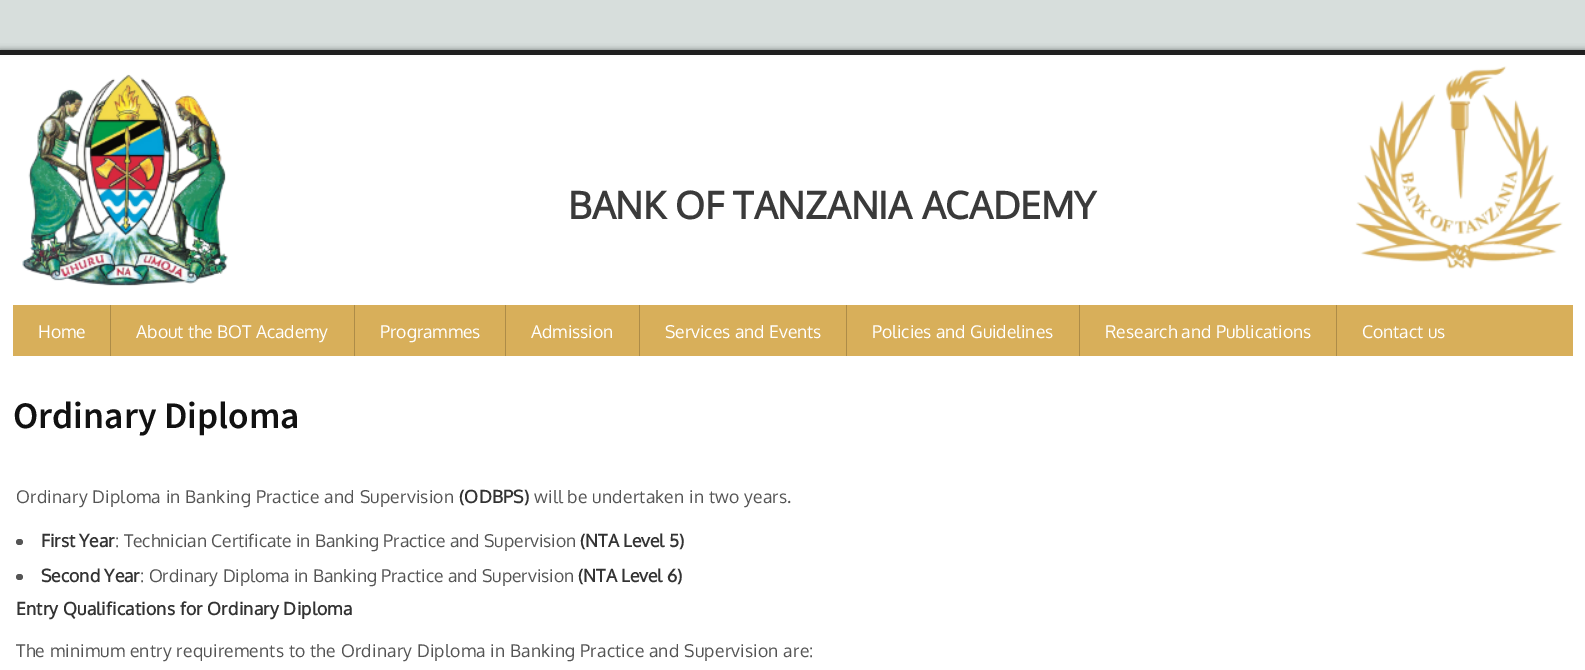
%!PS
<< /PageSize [1585 670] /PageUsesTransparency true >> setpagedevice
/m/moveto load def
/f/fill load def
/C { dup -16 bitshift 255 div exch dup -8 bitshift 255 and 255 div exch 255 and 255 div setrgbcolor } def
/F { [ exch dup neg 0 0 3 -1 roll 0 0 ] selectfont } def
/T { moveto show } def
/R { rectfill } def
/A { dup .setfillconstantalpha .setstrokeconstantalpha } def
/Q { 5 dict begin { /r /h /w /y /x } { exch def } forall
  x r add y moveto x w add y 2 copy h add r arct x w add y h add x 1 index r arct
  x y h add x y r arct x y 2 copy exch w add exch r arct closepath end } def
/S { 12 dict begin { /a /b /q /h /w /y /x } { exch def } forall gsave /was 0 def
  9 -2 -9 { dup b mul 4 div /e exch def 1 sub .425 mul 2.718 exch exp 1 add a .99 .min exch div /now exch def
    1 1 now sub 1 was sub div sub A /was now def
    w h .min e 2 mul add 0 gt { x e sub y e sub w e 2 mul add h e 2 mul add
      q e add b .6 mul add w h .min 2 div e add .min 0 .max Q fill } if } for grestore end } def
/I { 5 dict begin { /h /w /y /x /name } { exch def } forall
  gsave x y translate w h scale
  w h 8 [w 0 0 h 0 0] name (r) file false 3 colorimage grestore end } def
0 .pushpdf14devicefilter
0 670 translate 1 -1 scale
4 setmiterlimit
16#D7DEDC C
0 0 1585 670 R
16#000000 C
0 50 1585 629 0 3 .5 S
16#FFFFFF C
0 57 1585 613 R
16#1F1F1F C
0 50 1585 5 R
16#FCFCFC C
0 55 1585 2 R
(1.rgb) 22 74 206 212 I
(2.rgb) 1355 66 208 203 I
/Oxygen-Bold 37.5 F
16#3A3A3A C
(BANK OF TANZANIA ACADEMY) 568 219 T
16#D8AF5A C
13 305 1560 51 R
16#AD8C48 C
110 305 1 51 R
/Oxygen-Regular 17.5 F
16#FFFFFF C
(Home) 38 338 T
16#AD8C48 C
354 305 1 51 R
16#FFFFFF C
(About the BOT Academy) 136 338 T
16#AD8C48 C
505 305 1 51 R
16#FFFFFF C
(Programmes) 380 338 T
16#AD8C48 C
639 305 1 51 R
16#FFFFFF C
(Admission) 531 338 T
16#AD8C48 C
846 305 1 51 R
16#FFFFFF C
(Services and Events) 665 338 T
16#AD8C48 C
1079 305 1 51 R
16#FFFFFF C
(Policies and Guidelines) 872 338 T
16#AD8C48 C
1336 305 1 51 R
16#FFFFFF C
(Research and Publications) 1105 338 T
(Contact us) 1362 338 T
/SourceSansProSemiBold-SemiBold 37.5 F
16#111111 C
(Ordinary Diploma) 13 428 T
/Oxygen-Regular 17.5 F
16#555555 C
16 503 m .25 0 (Ordinary Diploma in Banking Practice and Supervision) ashow
/Oxygen-Bold 17.5 F
16#333333 C
459 503 m .25 0 (\(ODBPS\)) ashow
/Oxygen-Regular 17.5 F
16#555555 C
534 503 m .25 0 (will be undertaken in two years.) ashow
16 539 7 6 3 Q f
/Oxygen-Bold 17.5 F
16#333333 C
(First Year) 41 547 T
/Oxygen-Regular 17.5 F
16#555555 C
(: Technician Certificate in Banking Practice and Supervision) 115 547 T
/Oxygen-Bold 17.5 F
16#333333 C
(\(NTA Level 5\)) 580 547 T
16#555555 C
16 574 7 6 3 Q f
16#333333 C
(Second Year) 41 582 T
/Oxygen-Regular 17.5 F
16#555555 C
(: Ordinary Diploma in Banking Practice and Supervision) 140 582 T
/Oxygen-Bold 17.5 F
16#333333 C
(\(NTA Level 6\)) 578 582 T
16 615 m .25 0 (Entry Qualifications for Ordinary Diploma) ashow
/Oxygen-Regular 17.5 F
16#555555 C
16 657 m .25 0 (The minimum entry requirements to the Ordinary Diploma in Banking Practice and Supervision are:) ashow
.poppdf14devicefilter showpage
